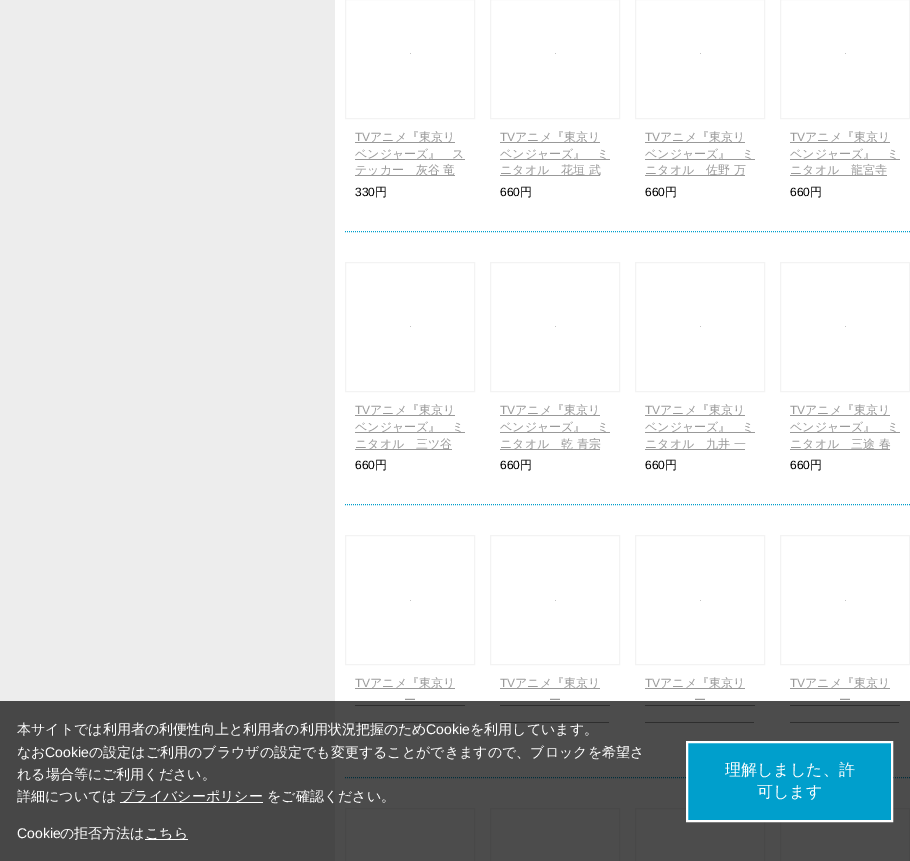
%!PS
<< /PageSize [910 861] /PageUsesTransparency true >> setpagedevice
/m/moveto load def
/l/rlineto load def
/z/closepath load def
/f/fill load def
/s/stroke load def
/q/gsave load def
/Q_/grestore load def
/w/setlinewidth load def
/C { dup -16 bitshift 255 div exch dup -8 bitshift 255 and 255 div exch 255 and 255 div setrgbcolor } def
/F { [ exch dup neg 0 0 3 -1 roll 0 0 ] selectfont } def
/T { moveto show } def
/R { rectfill } def
/A { dup .setfillconstantalpha .setstrokeconstantalpha } def
0 .pushpdf14devicefilter
0 861 translate 1 -1 scale
4 setmiterlimit
16#EDEDED C
0 0 910 861 R
16#FFFFFF C
335 0 575 861 R
16#009FCC C
[1 1] 0 setdash
345 231.5 m 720 0 l s
16#F3F3F3 C
[] 0 setdash
345.5 -.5 129 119 rectstroke
16#C3C3C3 C
410 53 1 1 R
/LiberationSans-Regular 12 F
16#999999 C
(TV) 355 141 T
355 142 100 1 R
/WenQuanYiZenHei-Medium 12 F
(アニメ『東京リ) 370 141 T
355 159 110 1 R
(ベンジャーズ』　ス) 355 158 T
355 175 100 1 R
(テッカー　灰谷 竜) 355 174 T
/LiberationSans-Regular 12 F
16#000000 C
(330) 355 196 T
/WenQuanYiZenHei-Medium 12 F
(円) 375 196 T
16#F3F3F3 C
490.5 -.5 129 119 rectstroke
16#C3C3C3 C
555 53 1 1 R
/LiberationSans-Regular 12 F
16#999999 C
(TV) 500 141 T
500 142 100 1 R
/WenQuanYiZenHei-Medium 12 F
(アニメ『東京リ) 515 141 T
500 159 110 1 R
(ベンジャーズ』　ミ) 500 158 T
500 175 100 1 R
(ニタオル　花垣 武) 500 174 T
/LiberationSans-Regular 12 F
16#000000 C
(660) 500 196 T
/WenQuanYiZenHei-Medium 12 F
(円) 520 196 T
16#F3F3F3 C
635.5 -.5 129 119 rectstroke
16#C3C3C3 C
700 53 1 1 R
/LiberationSans-Regular 12 F
16#999999 C
(TV) 645 141 T
645 142 100 1 R
/WenQuanYiZenHei-Medium 12 F
(アニメ『東京リ) 660 141 T
645 159 110 1 R
(ベンジャーズ』　ミ) 645 158 T
645 175 100 1 R
(ニタオル　佐野 万) 645 174 T
/LiberationSans-Regular 12 F
16#000000 C
(660) 645 196 T
/WenQuanYiZenHei-Medium 12 F
(円) 665 196 T
16#F3F3F3 C
780.5 -.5 129 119 rectstroke
16#C3C3C3 C
845 53 1 1 R
/LiberationSans-Regular 12 F
16#999999 C
(TV) 790 141 T
790 142 100 1 R
/WenQuanYiZenHei-Medium 12 F
(アニメ『東京リ) 805 141 T
790 159 110 1 R
(ベンジャーズ』　ミ) 790 158 T
790 175 97 1 R
(ニタオル　龍宮寺) 790 174 T
/LiberationSans-Regular 12 F
16#000000 C
(660) 790 196 T
/WenQuanYiZenHei-Medium 12 F
(円) 810 196 T
16#009FCC C
[1 1] 0 setdash
345 504.5 m 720 0 l s
16#F3F3F3 C
[] 0 setdash
345.5 262.5 129 129 rectstroke
16#C3C3C3 C
410 326 1 1 R
/LiberationSans-Regular 12 F
16#999999 C
(TV) 355 414 T
355 415 100 1 R
/WenQuanYiZenHei-Medium 12 F
(アニメ『東京リ) 370 414 T
355 432 110 1 R
(ベンジャーズ』　ミ) 355 431 T
355 449 97 1 R
(ニタオル　三ツ谷) 355 448 T
/LiberationSans-Regular 12 F
16#000000 C
(660) 355 469 T
/WenQuanYiZenHei-Medium 12 F
(円) 375 469 T
16#F3F3F3 C
490.5 262.5 129 129 rectstroke
16#C3C3C3 C
555 326 1 1 R
/LiberationSans-Regular 12 F
16#999999 C
(TV) 500 414 T
500 415 100 1 R
/WenQuanYiZenHei-Medium 12 F
(アニメ『東京リ) 515 414 T
500 432 110 1 R
(ベンジャーズ』　ミ) 500 431 T
500 449 100 1 R
(ニタオル　乾 青宗) 500 448 T
/LiberationSans-Regular 12 F
16#000000 C
(660) 500 469 T
/WenQuanYiZenHei-Medium 12 F
(円) 520 469 T
16#F3F3F3 C
635.5 262.5 129 129 rectstroke
16#C3C3C3 C
700 326 1 1 R
/LiberationSans-Regular 12 F
16#999999 C
(TV) 645 414 T
645 415 100 1 R
/WenQuanYiZenHei-Medium 12 F
(アニメ『東京リ) 660 414 T
645 432 110 1 R
(ベンジャーズ』　ミ) 645 431 T
645 449 100 1 R
(ニタオル　九井 一) 645 448 T
/LiberationSans-Regular 12 F
16#000000 C
(660) 645 469 T
/WenQuanYiZenHei-Medium 12 F
(円) 665 469 T
16#F3F3F3 C
780.5 262.5 129 129 rectstroke
16#C3C3C3 C
845 326 1 1 R
/LiberationSans-Regular 12 F
16#999999 C
(TV) 790 414 T
790 415 100 1 R
/WenQuanYiZenHei-Medium 12 F
(アニメ『東京リ) 805 414 T
790 432 110 1 R
(ベンジャーズ』　ミ) 790 431 T
790 449 100 1 R
(ニタオル　三途 春) 790 448 T
/LiberationSans-Regular 12 F
16#000000 C
(660) 790 469 T
/WenQuanYiZenHei-Medium 12 F
(円) 810 469 T
16#009FCC C
[1 1] 0 setdash
345 777.5 m 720 0 l s
16#F3F3F3 C
[] 0 setdash
345.5 535.5 129 129 rectstroke
16#C3C3C3 C
410 600 1 1 R
/LiberationSans-Regular 12 F
16#999999 C
(TV) 355 687 T
355 688 100 1 R
/WenQuanYiZenHei-Medium 12 F
(アニメ『東京リ) 370 687 T
(ー) 404 704 T
355 705 110 1 R
355 722 100 1 R
16#F3F3F3 C
490.5 535.5 129 129 rectstroke
16#C3C3C3 C
555 600 1 1 R
/LiberationSans-Regular 12 F
16#999999 C
(TV) 500 687 T
500 688 100 1 R
/WenQuanYiZenHei-Medium 12 F
(アニメ『東京リ) 515 687 T
(ー) 549 704 T
500 705 110 1 R
500 722 109 1 R
16#F3F3F3 C
635.5 535.5 129 129 rectstroke
16#C3C3C3 C
700 600 1 1 R
/LiberationSans-Regular 12 F
16#999999 C
(TV) 645 687 T
645 688 100 1 R
/WenQuanYiZenHei-Medium 12 F
(アニメ『東京リ) 660 687 T
(ー) 694 704 T
645 705 110 1 R
645 722 109 1 R
16#F3F3F3 C
780.5 535.5 129 129 rectstroke
16#C3C3C3 C
845 600 1 1 R
/LiberationSans-Regular 12 F
16#999999 C
(TV) 790 687 T
790 688 100 1 R
/WenQuanYiZenHei-Medium 12 F
(アニメ『東京リ) 805 687 T
(ー) 839 704 T
790 705 110 1 R
790 722 109 1 R
16#F3F3F3 C
345.5 808.5 129 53 rectstroke
490.5 808.5 129 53 rectstroke
635.5 808.5 129 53 rectstroke
780.5 808.5 129 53 rectstroke
0.7 A
16#000000 C
0 701 910 160 R
/WenQuanYiZenHei-Medium 14 F
1 A
16#FFFFFF C
(本サイトでは利用者の利便性向上と利用者の利用状況把握のため) 17 734 T
/LiberationSans-Regular 14 F
(Cookie) 426 734 T
/WenQuanYiZenHei-Medium 14 F
(を利用しています。) 470 734 T
(なお) 17 757 T
/LiberationSans-Regular 14 F
(Cookie) 45 757 T
/WenQuanYiZenHei-Medium 14 F
(の設定はご利用のブラウザの設定でも変更することができますので、ブロックを希望さ) 89 757 T
(れる場合等にご利用ください。) 17 779 T
(詳細については) 17 801 T
120 802 143 1 R
(プライバシーポリシー) 120 801 T
(をご確認ください。) 267 801 T
/LiberationSans-Regular 14 F
(Cookie) 17 838 T
/WenQuanYiZenHei-Medium 14 F
(の拒否方法は) 60 838 T
145 839 43 1 R
(こちら) 145 838 T
16#009FCC C
687 742 m 205 0 l 0 79 l -205 0 l z q f Q_
16#FFFFFF C
2 w
s
/WenQuanYiZenHei-Medium 16 F
(理解しました、許) 725 775 T
(可します) 757 797 T
.poppdf14devicefilter showpage
